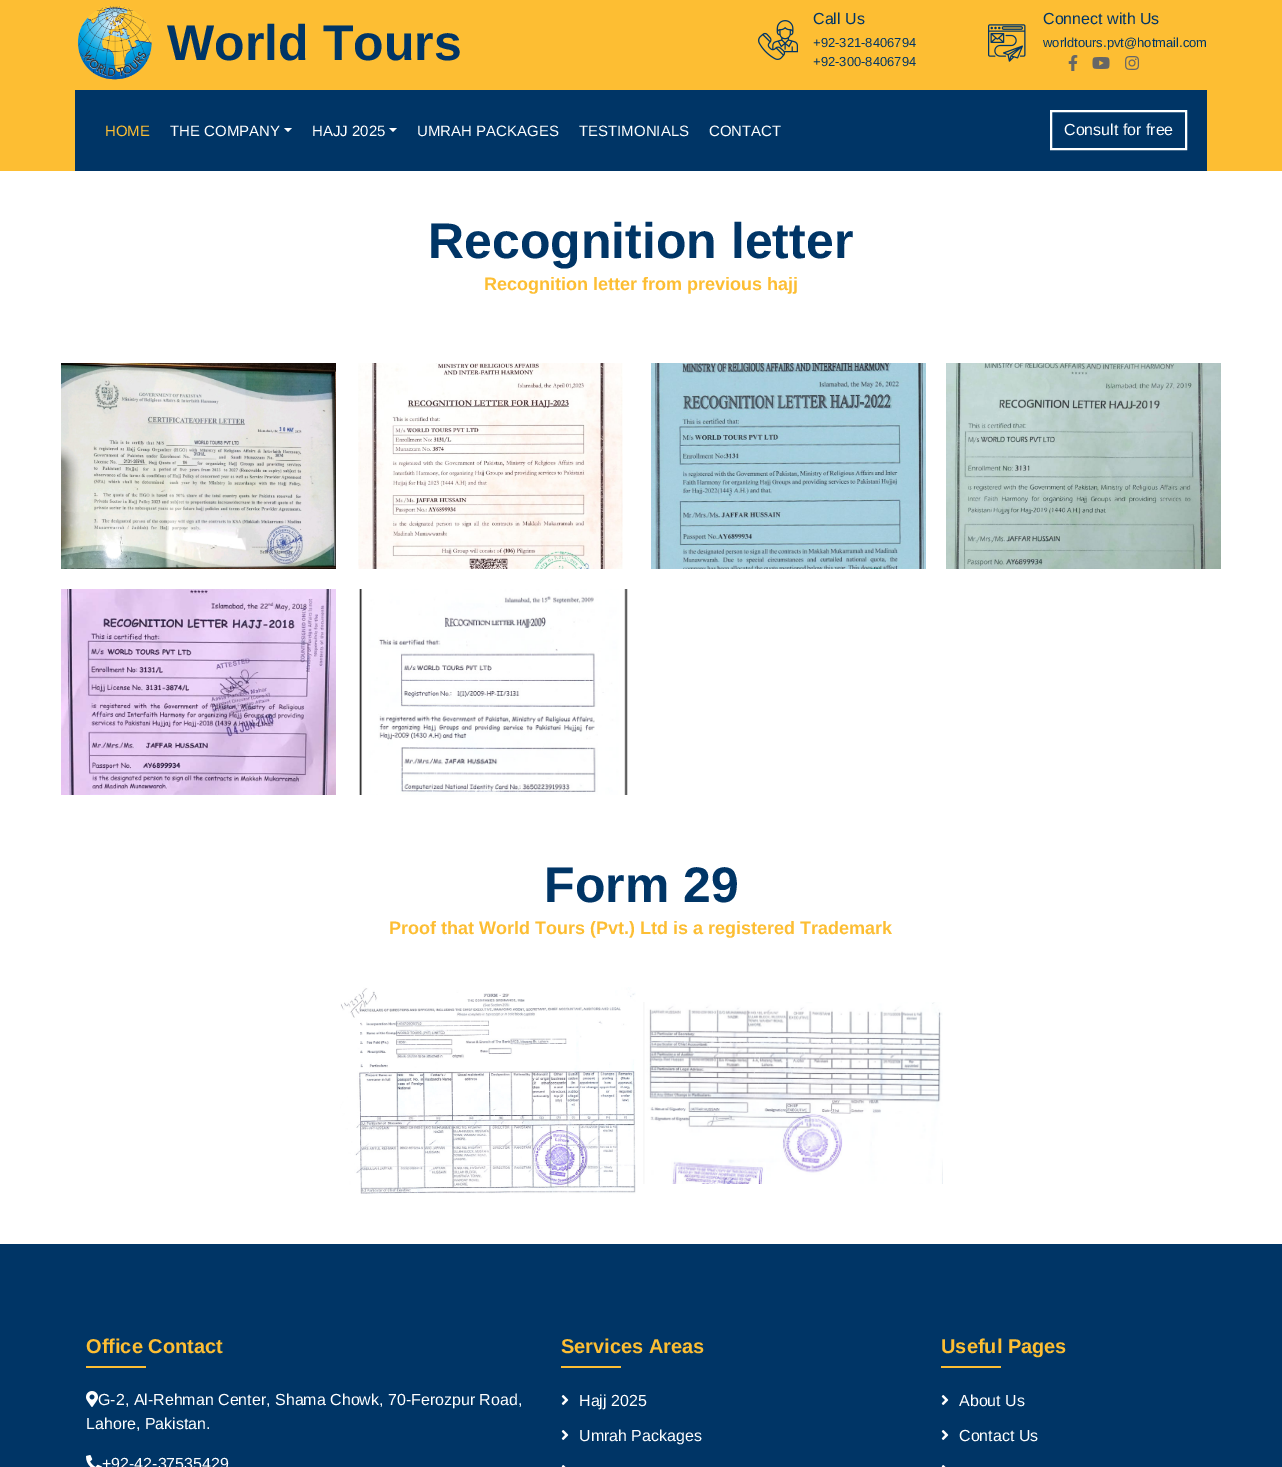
%!PS
<< /PageSize [1282 1467] >> setpagedevice
/m/moveto load def
/l/rlineto load def
/z/closepath load def
/f/fill load def
/w/setlinewidth load def
/C { dup -16 bitshift 255 div exch dup -8 bitshift 255 and 255 div exch 255 and 255 div setrgbcolor } def
/F { [ exch dup neg 0 0 3 -1 roll 0 0 ] selectfont } def
/T { moveto show } def
/R { rectfill } def
/I { 5 dict begin { /h /w /y /x /name } { exch def } forall
  gsave x y translate w h scale
  w h 8 [w 0 0 h 0 0] name (r) file false 3 colorimage grestore end } def
0 1467 translate 1 -1 scale
4 setmiterlimit
16#FFFFFF C
0 0 1282 1467 R
16#FDBE33 C
0 0 1282 171 R
(1.rgb) 77 6 75 74 I
/LiberationSans-Bold 50 F
16#003566 C
(World Tours) 167 60 T
(2.rgb) 758 20 40 40 I
/LiberationSans-Regular 16 F
(Call Us) 813 24 T
/LiberationSans-Regular 13 F
(+92-321-8406794) 813 47 T
(+92-300-8406794) 813 66 T
(3.rgb) 988 24 38 38 I
/LiberationSans-Regular 16 F
(Connect with Us) 1043 24 T
/LiberationSans-Regular 13 F
(worldtours.pvt@hotmail.com) 1043 47 T
(4.rgb) 1068 55 10 16 I
(5.rgb) 1092 57 18 12 I
(6.rgb) 1125 56 15 14 I
75 90 1132 81 R
/LiberationSans-Regular 15 F
16#FDBE33 C
(HOME) 105 136 T
16#FFFFFF C
(THE COMPANY) 170 136 T
284 128 m 8 0 l -4 4 l z f
(HAJJ 2025) 312 136 T
389 128 m 8 0 l -4 4 l z f
(UMRAH PACKAGES) 417 136 T
(TESTIMONIALS) 579 136 T
(CONTACT) 709 136 T
2 w
1051 111 135 38 rectstroke
/LiberationSans-Regular 16 F
(Consult for free) 1064 135 T
/LiberationSans-Bold 50 F
16#003566 C
(Recognition letter) 428 258 T
/LiberationSans-Bold 18 F
16#FDBE33 C
(Recognition letter from previous hajj) 484 290 T
(7.rgb) 61 363 275 206 I
(8.rgb) 358 363 265 206 I
(9.rgb) 651 363 275 206 I
(10.rgb) 946 363 275 206 I
(11.rgb) 61 589 275 206 I
(12.rgb) 359 589 269 206 I
/LiberationSans-Bold 50 F
16#003566 C
(Form 29) 544 902 T
/LiberationSans-Bold 18 F
16#FDBE33 C
(Proof that World Tours \(Pvt.\) Ltd is a registered Trademark) 389 934 T
(13.rgb) 340 987 296 207 I
(14.rgb) 643 1002 300 182 I
16#003566 C
0 1244 1282 223 R
/LiberationSans-Bold 20 F
16#FDBE33 C
(Office Contact) 86 1353 T
86 1366 60 2 R
(15.rgb) 86 1391 12 16 I
/LiberationSans-Regular 16 F
16#FFFFFF C
(G-2, Al-Rehman Center, Shama Chowk, 70-Ferozpur Road,) 98 1405 T
(Lahore, Pakistan.) 86 1429 T
(16.rgb) 86 1455 16 12 I
(+92-42-37535429) 102 1469 T
/LiberationSans-Bold 20 F
16#FDBE33 C
(Services Areas) 561 1353 T
561 1366 60 2 R
(17.rgb) 561 1395 8 10 I
/LiberationSans-Regular 16 F
16#FFFFFF C
(Hajj 2025) 579 1406 T
(17.rgb) 561 1430 8 10 I
(Umrah Packages) 579 1441 T
(18.rgb) 561 1465 5 2 I
/LiberationSans-Bold 20 F
16#FDBE33 C
(Useful Pages) 941 1353 T
941 1366 60 2 R
(17.rgb) 941 1395 8 10 I
/LiberationSans-Regular 16 F
16#FFFFFF C
(About Us) 959 1406 T
(17.rgb) 941 1430 8 10 I
(Contact Us) 959 1441 T
(18.rgb) 941 1465 5 2 I
showpage
